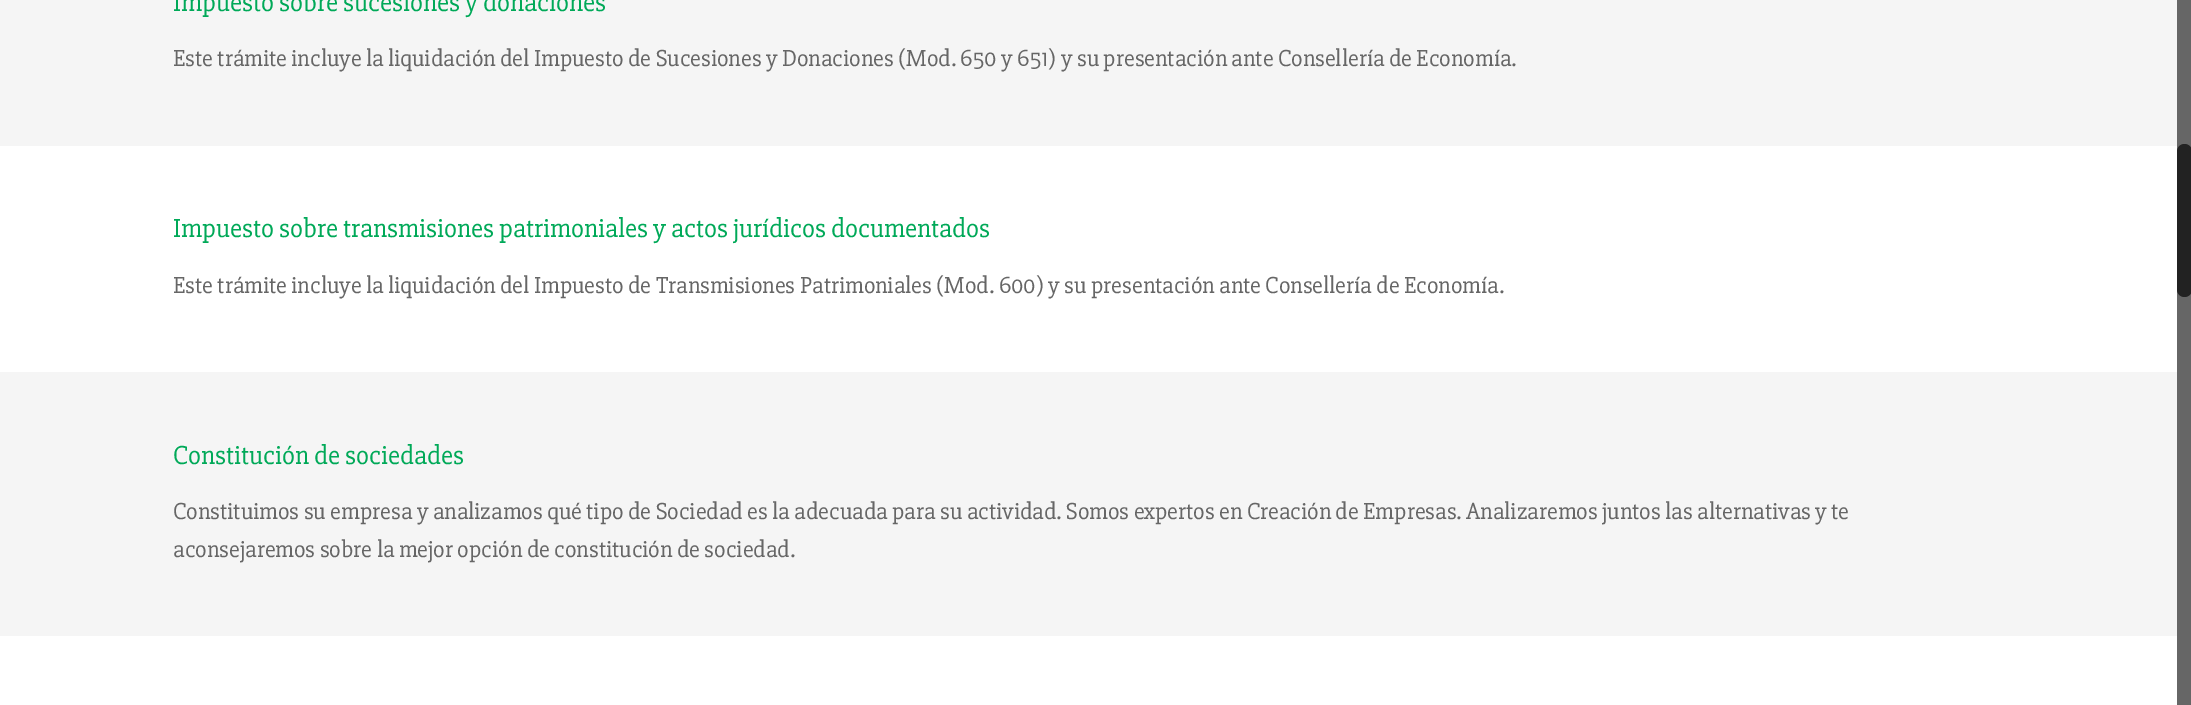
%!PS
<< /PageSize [2191 705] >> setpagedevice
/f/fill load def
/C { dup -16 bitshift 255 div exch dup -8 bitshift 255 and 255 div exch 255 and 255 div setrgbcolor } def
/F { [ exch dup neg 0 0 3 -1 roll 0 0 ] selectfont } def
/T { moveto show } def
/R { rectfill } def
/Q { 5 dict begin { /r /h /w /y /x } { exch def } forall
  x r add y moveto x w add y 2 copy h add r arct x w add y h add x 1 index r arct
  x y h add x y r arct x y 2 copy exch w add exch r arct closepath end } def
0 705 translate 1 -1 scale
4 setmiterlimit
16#FFFFFF C
0 0 2191 705 R
16#F5F5F5 C
0 0 2177 146 R
/Slabo27px-Regular 27 F
16#00A958 C
(Impuesto sobre sucesiones y donaciones) 173 11 T
/Slabo27px-Regular 24 F
16#666666 C
(Este trámite incluye la liquidación del Impuesto de Sucesiones y Donaciones \(Mod. 650 y 651\) y su presentación ante Consellería de Economía.) 173 66 T
/Slabo27px-Regular 27 F
16#00A958 C
(Impuesto sobre transmisiones patrimoniales y actos jurídicos documentados) 173 237 T
/Slabo27px-Regular 24 F
16#666666 C
(Este trámite incluye la liquidación del Impuesto de Transmisiones Patrimoniales \(Mod. 600\) y su presentación ante Consellería de Economía.) 173 293 T
16#F5F5F5 C
0 372 2177 264 R
/Slabo27px-Regular 27 F
16#00A958 C
(Constitución de sociedades) 173 464 T
/Slabo27px-Regular 24 F
16#666666 C
(Constituimos su empresa y analizamos qué tipo de Sociedad es la adecuada para su actividad. Somos expertos en Creación de Empresas. Analizaremos juntos las alternativas y te) 173 519 T
(aconsejaremos sobre la mejor opción de constitución de sociedad.) 173 557 T
2177 0 14 705 R
16#222222 C
2177 144 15 153 7.5 Q f
showpage
